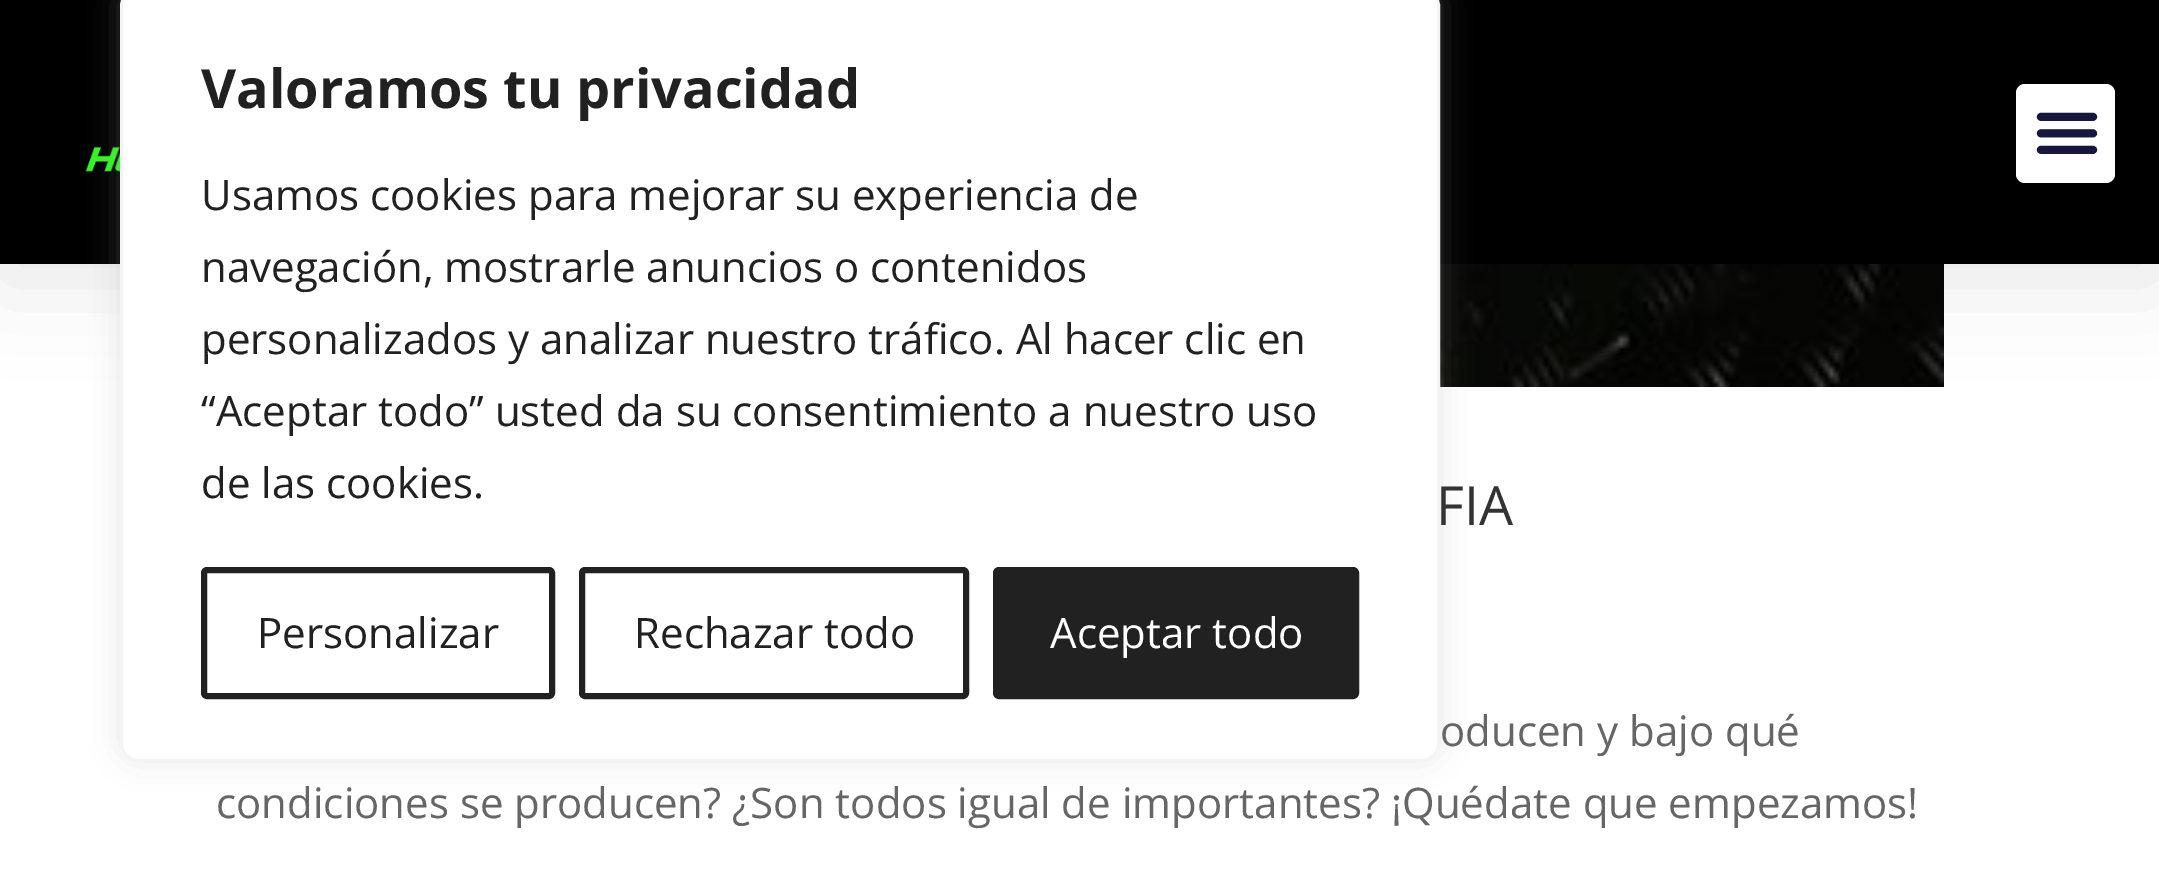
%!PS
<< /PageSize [2159 880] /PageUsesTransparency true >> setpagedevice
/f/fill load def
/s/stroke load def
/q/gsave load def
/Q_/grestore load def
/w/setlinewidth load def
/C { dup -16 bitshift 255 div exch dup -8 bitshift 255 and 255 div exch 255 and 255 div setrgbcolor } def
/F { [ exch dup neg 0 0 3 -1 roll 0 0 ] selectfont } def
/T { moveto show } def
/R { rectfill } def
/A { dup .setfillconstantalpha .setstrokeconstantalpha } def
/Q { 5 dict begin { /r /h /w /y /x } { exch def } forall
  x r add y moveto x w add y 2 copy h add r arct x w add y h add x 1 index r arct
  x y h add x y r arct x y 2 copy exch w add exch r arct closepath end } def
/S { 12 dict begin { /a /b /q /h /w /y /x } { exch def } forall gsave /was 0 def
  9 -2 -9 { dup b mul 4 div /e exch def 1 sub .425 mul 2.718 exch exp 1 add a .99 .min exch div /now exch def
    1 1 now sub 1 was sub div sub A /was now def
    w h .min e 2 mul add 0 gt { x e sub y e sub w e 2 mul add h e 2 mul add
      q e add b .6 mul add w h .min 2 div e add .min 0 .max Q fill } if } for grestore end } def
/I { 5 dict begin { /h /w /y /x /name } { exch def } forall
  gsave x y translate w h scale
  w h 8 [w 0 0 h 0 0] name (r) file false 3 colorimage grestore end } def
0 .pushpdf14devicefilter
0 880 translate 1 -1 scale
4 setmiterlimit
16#FFFFFF C
0 0 2159 880 R
(3.rgb) 1440 264 504 123 I
16#000000 C
0 15 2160 264 0 45 .1 S
0 0 2159 264 R
(1.rgb) 85 146 35 26 I
16#FFFFFF C
2016 84 99 99 9 Q f
(2.rgb) 2036 112 62 42 I
16#ACABAB C
120 -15 1320 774 18 15 .3 S
16#FFFFFF C
121.5 -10.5 1317 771 16.5 Q q f Q_
16#F4F4F4 C
3 w
s
/OpenSans-Bold 54 F
16#212121 C
(Valoramos tu privacidad) 201 108 T
/OpenSans-Regular 42 F
(Usamos cookies para mejorar su experiencia de) 201 210 T
(navegación, mostrarle anuncios o contenidos) 201 282 T
(personalizados y analizar nuestro tráfico. Al hacer clic en) 201 354 T
(“Aceptar todo” usted da su consentimiento a nuestro uso) 201 426 T
(de las cookies.) 201 498 T
6 w
204 570 348 126 3 Q s
(Personalizar) 257 648 T
582 570 384 126 3 Q s
(Rechazar todo) 634 648 T
996 570 360 126 3 Q q f Q_
s
16#FFFFFF C
(Aceptar todo) 1050 648 T
/OpenSans-Regular 54 F
16#333333 C
(FIA) 1436 525 T
/OpenSans-Regular 42 F
16#666666 C
(oducen y bajo qué) 1440 746 T
(condiciones se producen? ¿Son todos igual de importantes? ¡Quédate que empezamos!) 216 818 T
.poppdf14devicefilter showpage
